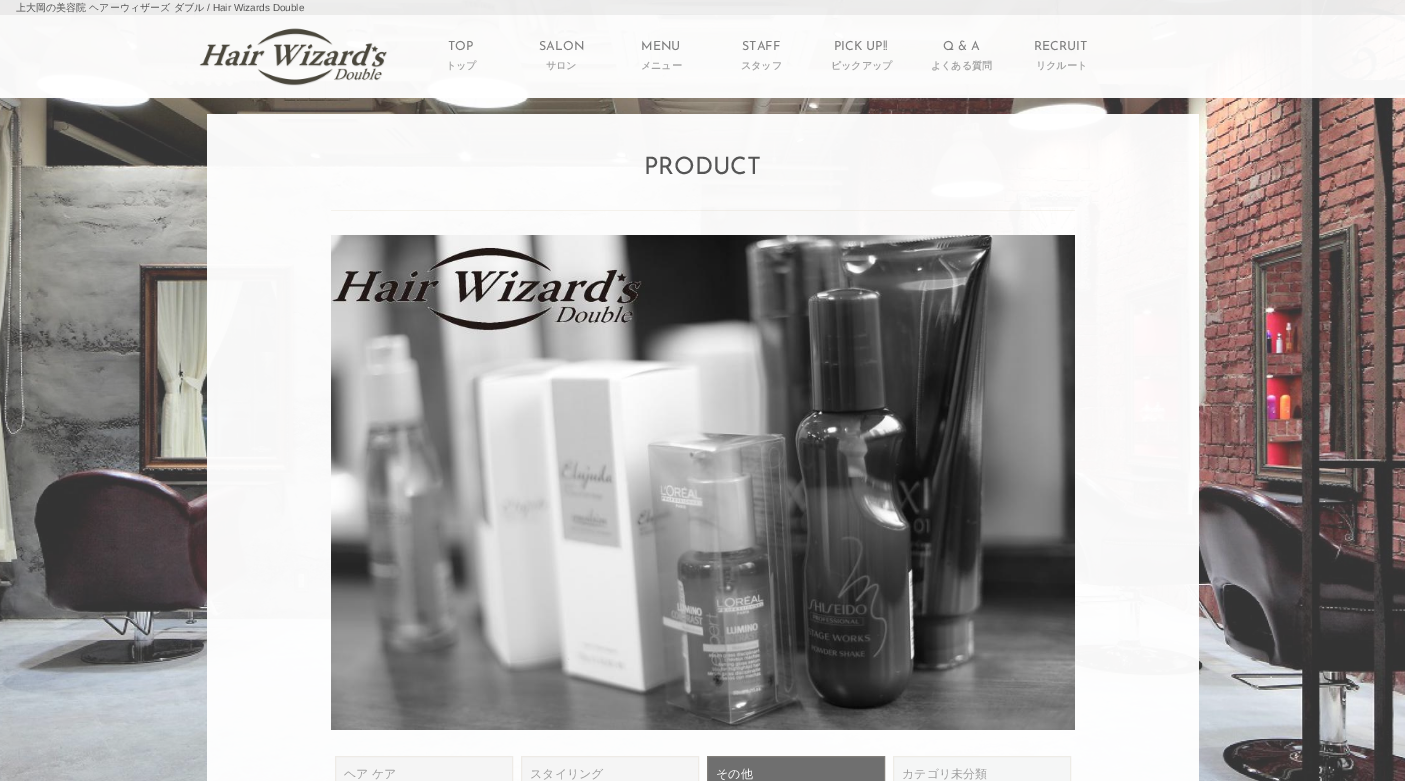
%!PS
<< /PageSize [1405 781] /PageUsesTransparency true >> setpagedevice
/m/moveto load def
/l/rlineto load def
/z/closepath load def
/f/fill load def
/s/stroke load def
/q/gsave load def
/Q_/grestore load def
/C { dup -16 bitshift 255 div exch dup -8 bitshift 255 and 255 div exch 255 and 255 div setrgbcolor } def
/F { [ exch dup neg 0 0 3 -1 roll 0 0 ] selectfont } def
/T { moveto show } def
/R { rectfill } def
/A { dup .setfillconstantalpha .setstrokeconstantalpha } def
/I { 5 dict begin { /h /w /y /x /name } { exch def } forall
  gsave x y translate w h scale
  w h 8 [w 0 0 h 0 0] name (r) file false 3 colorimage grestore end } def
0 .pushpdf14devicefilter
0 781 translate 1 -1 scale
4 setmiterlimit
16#FFFFFF C
0 0 1405 781 R
(1.rgb) 0 0 1405 781 I
0.96 A
16#F0F0F0 C
0 0 1405 15 R
/WenQuanYiZenHei-Medium 10 F
1 A
16#555555 C
(上大岡の美容院 ヘアーウィザーズ ダブル) 16 11 T
/LiberationSans-Regular 10 F
(/ Hair Wizards Double) 207 11 T
0.96 A
16#FFFFFF C
0 15 1405 83 R
1 A
(2.rgb) 199 28 188 58 I
/JosefinSans-Thin 12.5 F
16#7F7F7F C
(TOP) 448 50 T
/WenQuanYiZenHei-Bold 10 F
16#A4A4A4 C
(トップ) 446 69 T
/JosefinSans-Thin 12.5 F
16#7F7F7F C
(SALON) 539 50 T
/WenQuanYiZenHei-Bold 10 F
16#A4A4A4 C
(サロン) 546 69 T
/JosefinSans-Thin 12.5 F
16#7F7F7F C
(MENU) 641 50 T
/WenQuanYiZenHei-Bold 10 F
16#A4A4A4 C
(メニュー) 641 69 T
/JosefinSans-Thin 12.5 F
16#7F7F7F C
(STAFF) 742 50 T
/WenQuanYiZenHei-Bold 10 F
16#A4A4A4 C
(スタッフ) 741 69 T
/JosefinSans-Thin 12.5 F
16#7F7F7F C
(PICK UP!!) 834 50 T
/WenQuanYiZenHei-Bold 10 F
16#A4A4A4 C
(ピックアップ) 831 69 T
/JosefinSans-Thin 12.5 F
16#7F7F7F C
(Q & A) 943 50 T
/WenQuanYiZenHei-Bold 10 F
16#A4A4A4 C
(よくある質問) 931 69 T
/JosefinSans-Thin 12.5 F
16#7F7F7F C
(RECRUIT) 1034 50 T
/WenQuanYiZenHei-Bold 10 F
16#A4A4A4 C
(リクルート) 1036 69 T
0.96 A
16#FFFFFF C
207 114 992 667 R
0.19 A
16#CFC0A4 C
331 210 744 1 R
/JosefinSans-Thin 24 F
1 A
16#555555 C
(PRODUCT) 644 174 T
(3.rgb) 331 235 744 495 I
16#F5F5F5 C
335.5 756.5 m 177 0 l 0 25 l -177 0 l z q f Q_
16#EEEBE6 C
s
/WenQuanYiZenHei-Medium 12 F
16#9E9E9E C
(ヘア ケア) 344 778 T
16#F5F5F5 C
521.5 756.5 m 177 0 l 0 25 l -177 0 l z q f Q_
16#EEEBE6 C
s
16#9E9E9E C
(スタイリング) 530 778 T
16#6F6F6F C
707.5 756.5 m 177 0 l 0 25 l -177 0 l z q f Q_
16#817E79 C
s
16#FFFFFF C
(その他) 716 778 T
16#F5F6F6 C
893.5 756.5 m 177 0 l 0 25 l -177 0 l z q f Q_
16#EEECE6 C
s
16#9E9E9E C
(カテゴリ未分類) 902 778 T
.poppdf14devicefilter showpage
